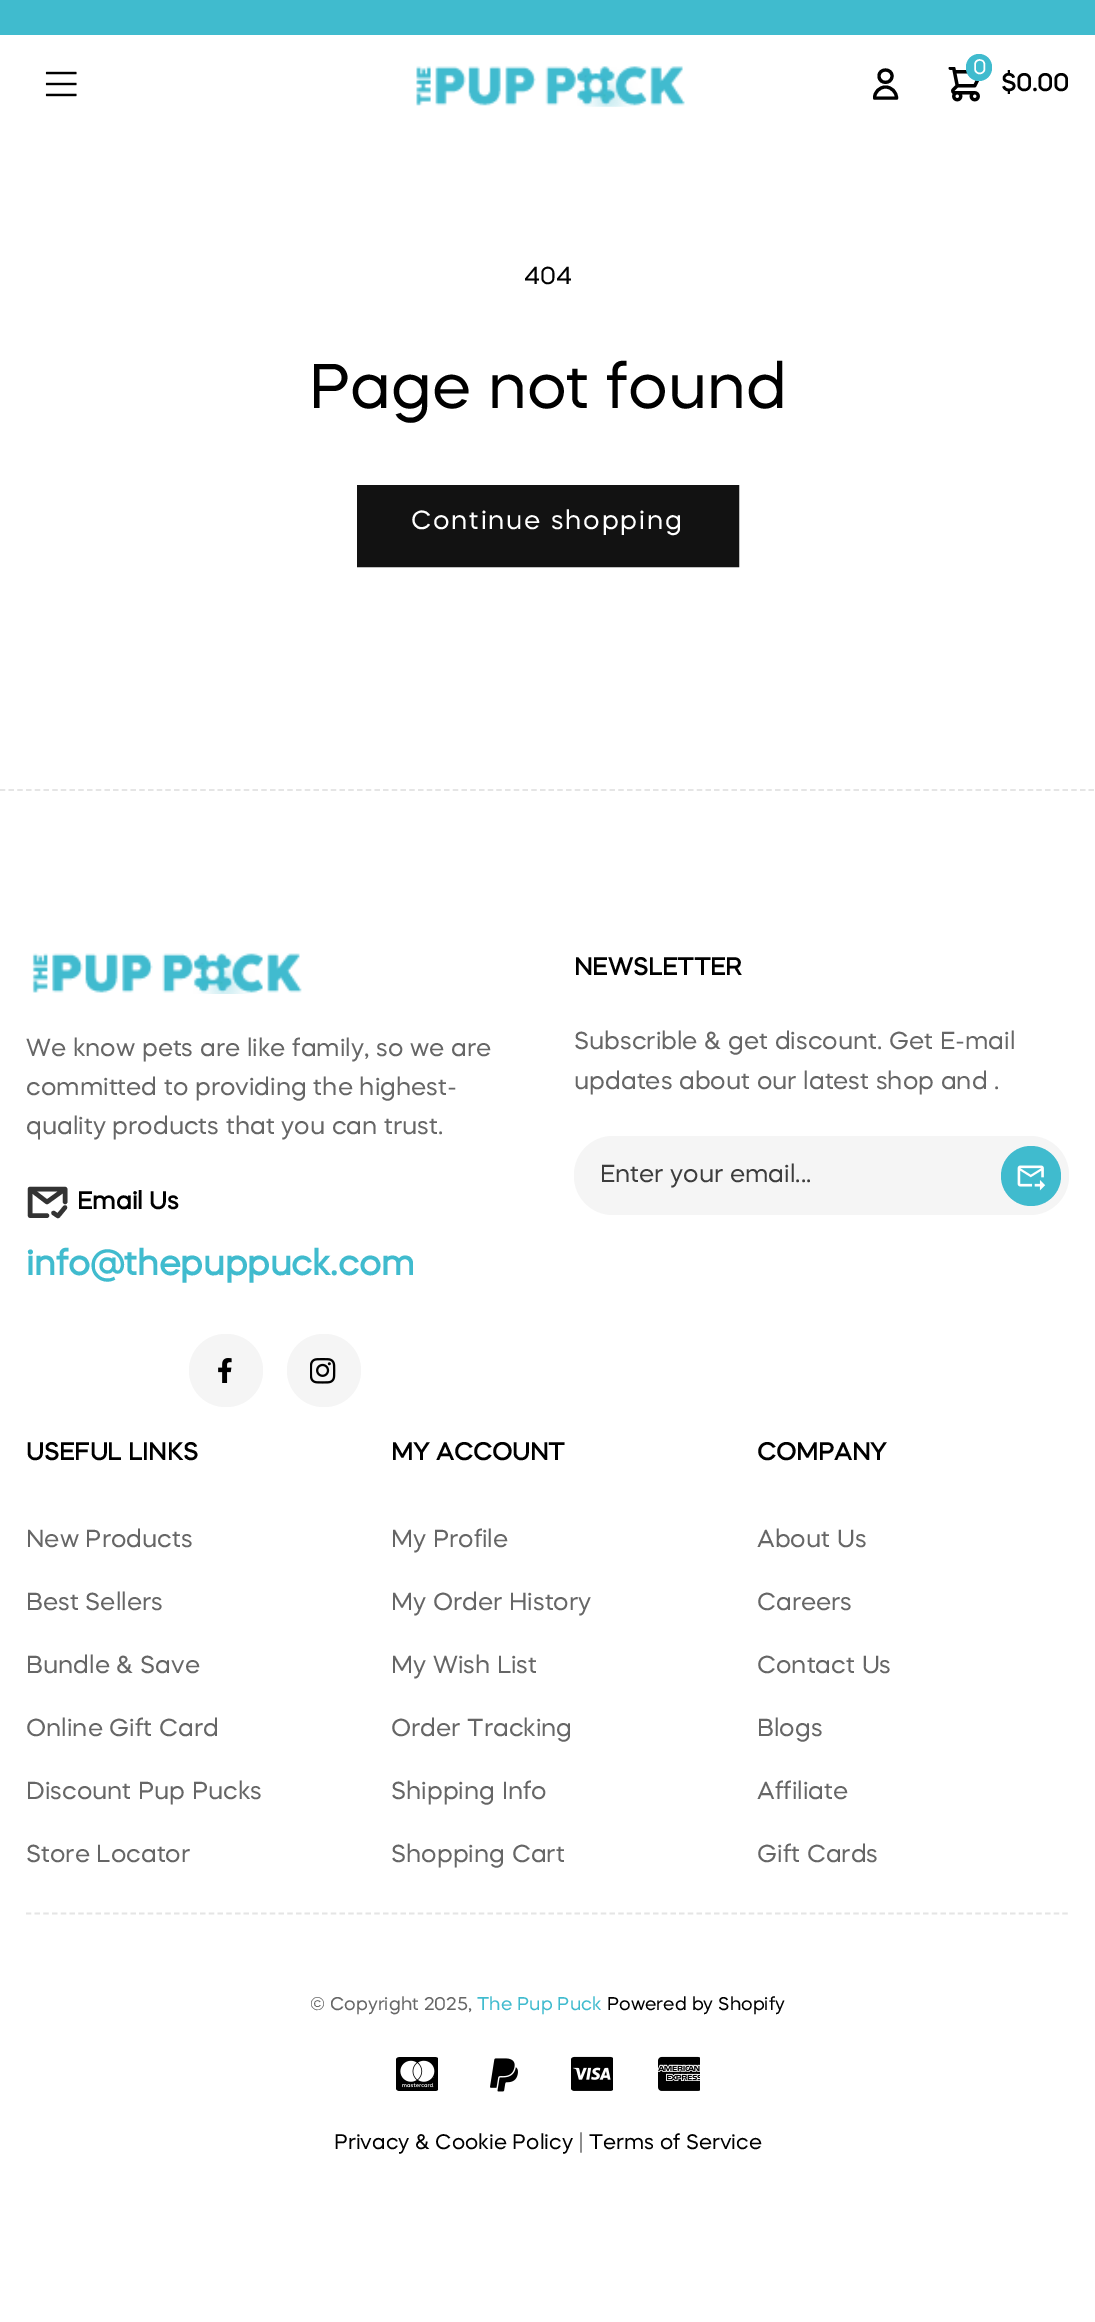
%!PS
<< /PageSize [1095 2322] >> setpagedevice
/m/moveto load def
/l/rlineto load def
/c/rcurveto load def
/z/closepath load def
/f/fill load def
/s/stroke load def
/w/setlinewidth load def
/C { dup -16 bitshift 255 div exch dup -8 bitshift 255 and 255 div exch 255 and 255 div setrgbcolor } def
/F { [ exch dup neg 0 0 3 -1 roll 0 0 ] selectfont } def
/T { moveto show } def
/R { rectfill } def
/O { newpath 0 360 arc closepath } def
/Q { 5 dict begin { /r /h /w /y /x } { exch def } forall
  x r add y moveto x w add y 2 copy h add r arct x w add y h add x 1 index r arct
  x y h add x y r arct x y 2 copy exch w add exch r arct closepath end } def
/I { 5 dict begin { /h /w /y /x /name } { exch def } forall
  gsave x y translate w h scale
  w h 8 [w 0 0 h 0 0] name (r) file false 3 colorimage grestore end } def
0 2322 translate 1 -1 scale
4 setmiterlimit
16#FFFFFF C
0 0 1095 2322 R
16#40BBCE C
0 0 1095 35 R
(1.rgb) 45 71 32 26 I
(2.rgb) 416 66 269 41 I
16#000000 C
3.1 w
1 setlinecap
1 setlinejoin
892 76 m 0 8.5 -13 8.5 -13 0 c 0 -8 13 -8 13 0 c z 885.5 87 m -6 0 -11 5 -11 11 c 22 0 l 0 -6 -5 -11 -11 -11 c z s
(3.rgb) 948 67 32 35 I
16#40BBCE C
966 54 26 27 13 Q f
/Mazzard-Regular 21 F
16#FFFFFF C
(0) 973 74 T
/Mazzard-Bold 24.5 F
16#000000 C
($0.00) 1001 91 T
/Mazzard-Regular 24.5 F
(404) 524 284 T
/Mazzard-Regular 63 F
(Page not found) 309 408 T
16#121212 C
2 w
0 setlinecap
0 setlinejoin
358 486 380 80 rectstroke
359 487 378 78 R
/Mazzard-Regular 26.25 F
16#FFFFFF C
411 529 m 1.75 0 (Continue shopping) ashow
16#E5E5E5 C
1.8 w
[5.25 3.46] 0 setdash
0 790 m 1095.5 0 l s
(4.rgb) 32 953 270 41 I
/Mazzard-Regular 24.5 F
16#666666 C
(We know pets are like family, so we are) 26 1056 T
(committed to providing the highest-) 26 1095 T
(quality products that you can trust.) 26 1134 T
16#333333 C
4.4 w
1 setlinecap
1 setlinejoin
[] 0 setdash
65 1202 m 0 -13 l -35 0 l 0 26.5 l 17 0 l 53.5 1213 m 4.5 3 l 7 -8.5 l 30 1189 m 17 13 l 18 -13 l s
/Mazzard-Bold 24.5 F
16#000000 C
(Email Us) 77 1209 T
/Mazzard-Bold 35 F
16#40BBCE C
(info@thepuppuck.com) 26 1275 T
16#F5F5F5 C
189 1334 74 73 36.5 Q f
(5.rgb) 218 1358 14 25 I
287 1334 74 73 36.5 Q f
(6.rgb) 310 1358 26 26 I
/Mazzard-Bold 24.5 F
16#000000 C
(NEWSLETTER) 574 975 T
/Mazzard-Regular 24.5 F
16#666666 C
(Subscrible & get discount. Get E-mail) 574 1049 T
(updates about our latest shop and .) 574 1089 T
16#F5F5F5 C
574 1136 495 79 39 Q f
16#3D3D3D C
(Enter your email...) 600 1182 T
16#40BBCE C
1031 1176 30 O f
(7.rgb) 1017 1165 29 26 I
/Mazzard-Bold 24.5 F
16#000000 C
(USEFUL LINKS) 26 1460 T
/Mazzard-Regular 24.5 F
16#666666 C
(New Products) 26 1547 T
(Best Sellers) 26 1610 T
(Bundle & Save) 26 1673 T
(Online Gift Card) 26 1736 T
(Discount Pup Pucks) 26 1799 T
(Store Locator) 26 1862 T
/Mazzard-Bold 24.5 F
16#000000 C
(MY ACCOUNT) 391 1460 T
/Mazzard-Regular 24.5 F
16#666666 C
(My Profile) 391 1547 T
(My Order History) 391 1610 T
(My Wish List) 391 1673 T
(Order Tracking) 391 1736 T
(Shipping Info) 391 1799 T
(Shopping Cart) 391 1862 T
/Mazzard-Bold 24.5 F
16#000000 C
(COMPANY) 757 1460 T
/Mazzard-Regular 24.5 F
16#666666 C
(About Us) 757 1547 T
(Careers) 757 1610 T
(Contact Us) 757 1673 T
(Blogs) 757 1736 T
(Affiliate) 757 1799 T
(Gift Cards) 757 1862 T
16#E5E5E5 C
1.8 w
0 setlinecap
0 setlinejoin
[5.25 3.46] 0 setdash
26 1913.5 m 1043 0 l s
/Mazzard-Regular 18.4 F
16#666666 C
(© Copyright 2025,) 310 2010 T
16#40BBCE C
(The Pup Puck) 477 2010 T
16#000000 C
(Powered by Shopify) 607 2010 T
(8.rgb) 396 2057 42 34 I
(9.rgb) 490 2058 28 34 I
(10.rgb) 571 2056 42 35 I
(11.rgb) 658 2056 42 35 I
/Mazzard-Regular 21 F
(Privacy & Cookie Policy) 334 2149 T
16#666666 C
(|) 579 2149 T
16#000000 C
(Terms of Service) 589 2149 T
showpage
